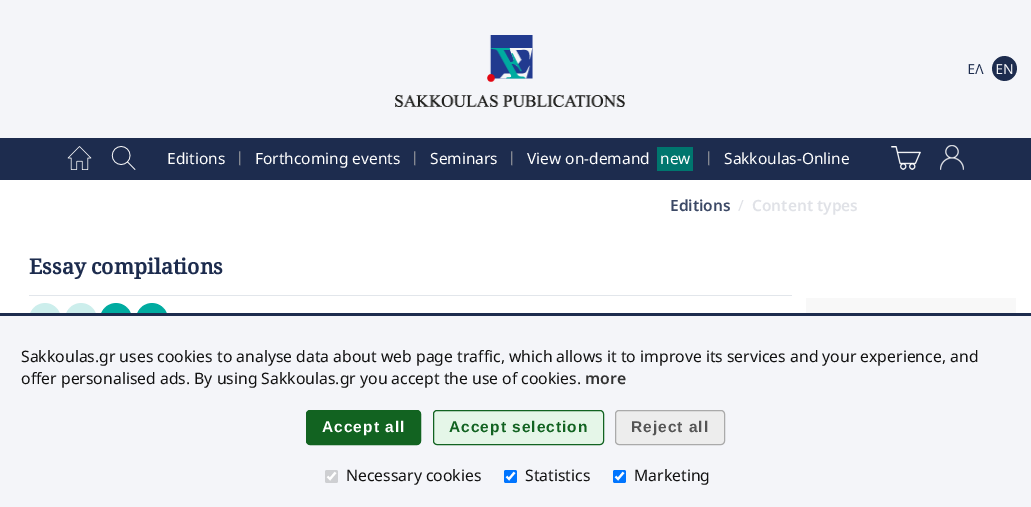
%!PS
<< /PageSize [1031 507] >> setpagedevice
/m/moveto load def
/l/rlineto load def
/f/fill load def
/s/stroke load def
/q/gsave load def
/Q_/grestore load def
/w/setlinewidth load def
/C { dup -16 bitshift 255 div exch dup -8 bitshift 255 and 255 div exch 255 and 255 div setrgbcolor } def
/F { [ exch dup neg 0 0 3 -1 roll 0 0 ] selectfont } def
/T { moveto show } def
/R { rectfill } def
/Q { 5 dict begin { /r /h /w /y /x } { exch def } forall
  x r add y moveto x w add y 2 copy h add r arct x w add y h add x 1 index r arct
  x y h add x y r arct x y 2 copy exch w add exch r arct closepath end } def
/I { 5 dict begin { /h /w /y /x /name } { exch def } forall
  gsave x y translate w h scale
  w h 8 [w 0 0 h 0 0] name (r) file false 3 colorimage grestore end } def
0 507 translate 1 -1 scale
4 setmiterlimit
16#FFFFFF C
0 0 1031 507 R
16#F4F5F9 C
0 0 1031 138 R
(1.rgb) 395 35 230 72 I
(2.rgb) 968 64 16 10 I
(3.rgb) 992 56 25 25 I
16#1D2C4E C
0 138 1031 42 R
(4.rgb) 67 146 25 24 I
(5.rgb) 111 146 25 24 I
/NotoSans-Regular 15.5 F
16#FFFFFF C
(Editions) 167 164 T
/NotoSans-Regular 14 F
16#AAAAAA C
(|) 236 162 T
/NotoSans-Regular 15.5 F
16#FFFFFF C
(Forthcoming events) 255 164 T
/NotoSans-Regular 14 F
16#AAAAAA C
(|) 411 162 T
/NotoSans-Regular 15.5 F
16#FFFFFF C
(Seminars) 430 164 T
/NotoSans-Regular 14 F
16#AAAAAA C
(|) 508 162 T
/NotoSans-Regular 15.5 F
16#FFFFFF C
(View on-demand) 527 164 T
16#00766E C
657 147 36 24 R
16#FFFFFF C
(new) 660 164 T
/NotoSans-Regular 14 F
16#AAAAAA C
(|) 705 162 T
/NotoSans-Regular 15.5 F
16#FFFFFF C
(Sakkoulas-Online) 724 164 T
(6.rgb) 891 146 30 24 I
(7.rgb) 940 145 24 25 I
/NotoSans-SemiBold 15.5 F
16#3C4966 C
(Editions) 670 211 T
/NotoSans-Regular 15.5 F
16#E0E2E7 C
(/) 738 211 T
/NotoSans-SemiBold 15.5 F
(Content types) 752 211 T
/NotoSerif-Bold 21 F
16#1D2C4E C
(Essay compilations) 29 274 T
16#E2E6EB C
29 295 763 1 R
(8.rgb) 30 303 30 10 I
(8.rgb) 66 303 30 10 I
(9.rgb) 101 303 30 10 I
(9.rgb) 137 303 30 10 I
16#F8F8F8 C
806 298 210 15 R
16#F4F5F9 C
0 316 1031 191 R
16#1D2C4E C
0 313 1031 3 R
/NotoSans-Regular 15.75 F
16#111111 C
(Sakkoulas.gr uses cookies to analyse data about web page traffic, which allows it to improve its services and your experience, and) 21 362 T
(offer personalised ads. By using Sakkoulas.gr you accept the use of cookies.) 21 384 T
/NotoSans-SemiBold 15.75 F
16#333333 C
(more) 585 384 T
16#126321 C
306.5 410.5 114 34 3.5 Q q f Q_
s
/LiberationSans-Bold 15.5 F
16#FFFFFF C
322 432 m 1 0 (Accept all) ashow
16#E5F6E8 C
433.5 410.5 170 34 3.5 Q q f Q_
16#126321 C
s
449 432 m 1 0 (Accept selection) ashow
16#EDEDED C
615.5 410.5 109 34 3.5 Q q f Q_
16#AAAAAA C
s
16#555555 C
631 432 m 1 0 (Reject all) ashow
16#CECFD2 C
325 470 13 13 2 Q f
16#FFFFFF C
2.1 w
327.5 476.5 m 2.5 2.5 l 5.5 -6.5 l s
/NotoSans-Regular 15.75 F
16#111111 C
(Necessary cookies) 346 481 T
16#0075FF C
504 470 13 13 2 Q f
16#FFFFFF C
506.5 476.5 m 2.5 2.5 l 5.5 -6.5 l s
16#111111 C
(Statistics) 525 481 T
16#0075FF C
613 470 13 13 2 Q f
16#FFFFFF C
615.5 476.5 m 2.5 2.5 l 5.5 -6.5 l s
16#111111 C
(Marketing) 634 481 T
showpage
